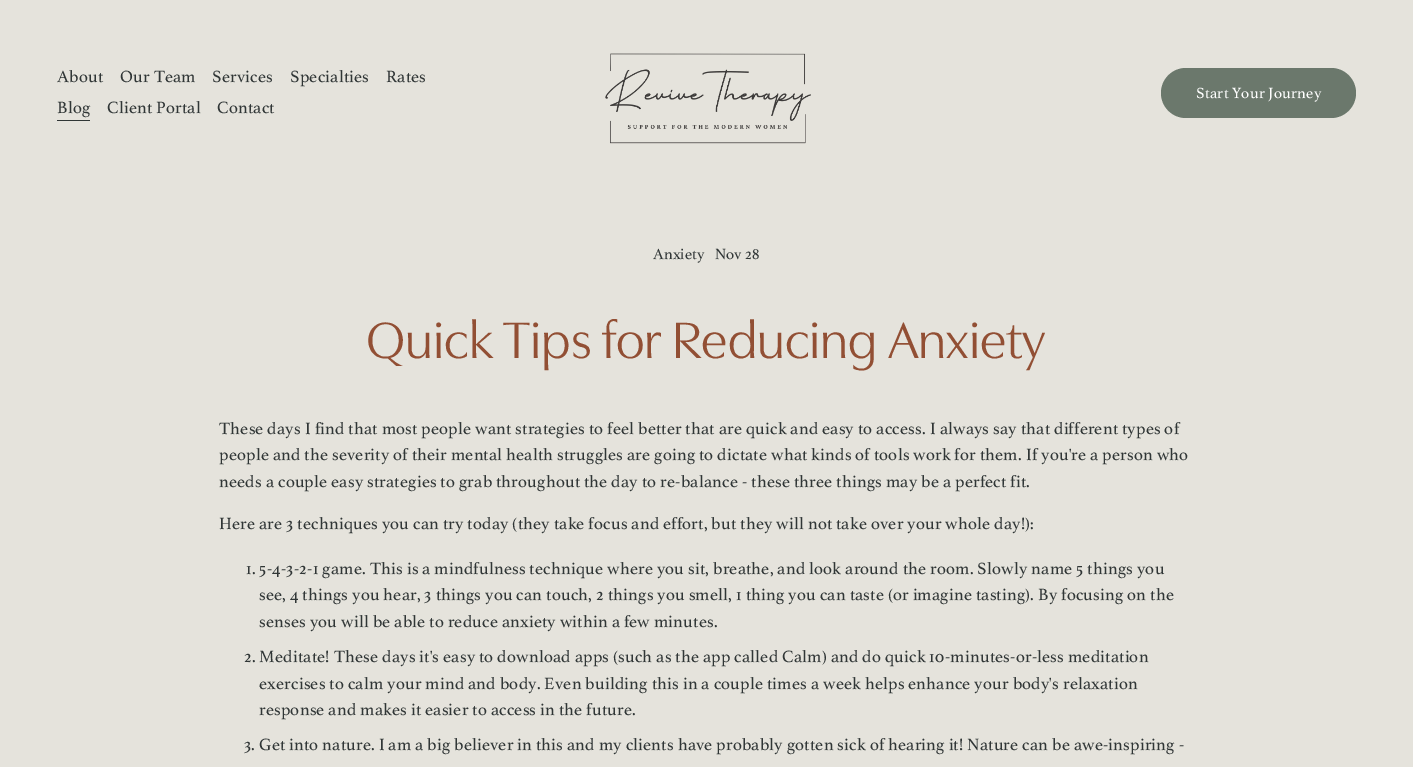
%!PS
<< /PageSize [1413 767] >> setpagedevice
/m/moveto load def
/f/fill load def
/C { dup -16 bitshift 255 div exch dup -8 bitshift 255 and 255 div exch 255 and 255 div setrgbcolor } def
/F { [ exch dup neg 0 0 3 -1 roll 0 0 ] selectfont } def
/T { moveto show } def
/R { rectfill } def
/Q { 5 dict begin { /r /h /w /y /x } { exch def } forall
  x r add y moveto x w add y 2 copy h add r arct x w add y h add x 1 index r arct
  x y h add x y r arct x y 2 copy exch w add exch r arct closepath end } def
/I { 5 dict begin { /h /w /y /x /name } { exch def } forall
  gsave x y translate w h scale
  w h 8 [w 0 0 h 0 0] name (r) file false 3 colorimage grestore end } def
0 767 translate 1 -1 scale
4 setmiterlimit
16#E5E3DC C
0 0 1413 767 R
/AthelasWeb-Regular 17.7 F
16#303636 C
57 82 m .18 0 (About) ashow
120 82 m .18 0 (Our Team) ashow
212 82 m .18 0 (Services) ashow
290 82 m .18 0 (Specialties) ashow
386 82 m .18 0 (Rates) ashow
57 120 33 1 R
57 113 m .18 0 (Blog) ashow
107 113 m .18 0 (Client Portal) ashow
217 113 m .18 0 (Contact) ashow
(1.rgb) 605 53 206 91 I
16#6B786C C
1161 68 195 50 25 Q f
/AthelasWeb-Regular 16 F
16#FFFFFF C
1196 98 m .2 0 (Start Your Journey) ashow
16#303636 C
(Anxiety) 653 259 T
(Nov 28) 715 259 T
/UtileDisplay-Regular 53.25 F
16#924F34 C
(Quick Tips for Reducing Anxiety) 366 358 T
/AthelasWeb-Regular 17.7 F
16#303636 C
219 434 m .18 0 (These days I find that most people want strategies to feel better that are quick and easy to access. I always say that different types of) ashow
219 460 m .18 0 (people and the severity of their mental health struggles are going to dictate what kinds of tools work for them. If you're a person who) ashow
219 487 m .18 0 (needs a couple easy strategies to grab throughout the day to re-balance - these three things may be a perfect fit.) ashow
219 529 m .18 0 (Here are 3 techniques you can try today \(they take focus and effort, but they will not take over your whole day!\):) ashow
246 574 m .18 0 (1. 5-4-3-2-1 game. This is a mindfulness technique where you sit, breathe, and look around the room. Slowly name 5 things you) ashow
259 600 m .18 0 (see, 4 things you hear, 3 things you can touch, 2 things you smell, 1 thing you can taste \(or imagine tasting\). By focusing on the) ashow
259 627 m .18 0 (senses you will be able to reduce anxiety within a few minutes.) ashow
244 662 m .18 0 (2. Meditate! These days it's easy to download apps \(such as the app called Calm\) and do quick 10-minutes-or-less meditation) ashow
259 689 m .18 0 (exercises to calm your mind and body. Even building this in a couple times a week helps enhance your body's relaxation) ashow
259 715 m .18 0 (response and makes it easier to access in the future.) ashow
244 750 m .18 0 (3. Get into nature. I am a big believer in this and my clients have probably gotten sick of hearing it! Nature can be awe-inspiring -) ashow
showpage
